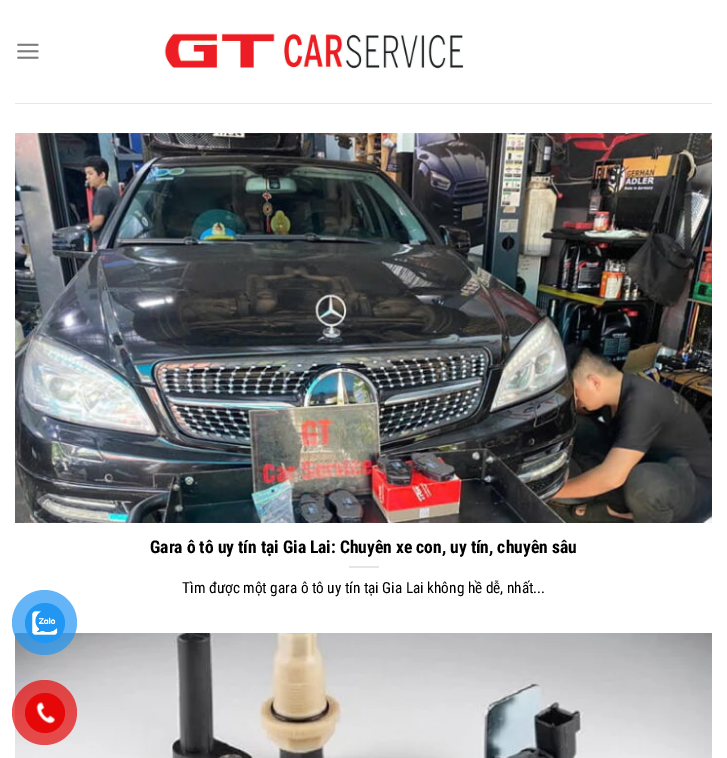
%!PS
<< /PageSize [727 758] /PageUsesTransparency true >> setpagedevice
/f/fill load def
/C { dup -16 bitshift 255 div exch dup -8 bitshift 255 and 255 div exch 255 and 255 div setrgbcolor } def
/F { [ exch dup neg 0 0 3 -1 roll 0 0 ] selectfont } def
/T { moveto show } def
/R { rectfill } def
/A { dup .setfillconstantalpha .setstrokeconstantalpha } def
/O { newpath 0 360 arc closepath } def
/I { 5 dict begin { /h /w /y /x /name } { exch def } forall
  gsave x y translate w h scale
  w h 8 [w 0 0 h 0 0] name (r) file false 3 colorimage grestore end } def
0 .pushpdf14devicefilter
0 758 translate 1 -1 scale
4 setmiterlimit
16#FFFFFF C
0 0 727 758 R
(1.rgb) 17 43 22 16 I
(2.rgb) 164 32 300 38 I
16#E6E6E6 C
15 103 697 1 R
(3.rgb) 15 133 697 390 I
/RobotoCondensed-Bold 17.55 F
16#000000 C
(Gara ô tô uy tín tại Gia Lai: Chuyên xe con, uy tín, chuyên sâu) 150 553 T
16#E6E6E6 C
349 566 30 2 R
/RobotoCondensed-Regular 15.25 F
16#000000 C
(Tìm được một gara ô tô uy tín tại Gia Lai không hề dễ, nhất...) 182 593 T
(4.rgb) 15 633 697 125 I
0.7 A
16#2196F3 C
44.5 622.5 32.5 O f
1 A
45 623 20 O f
(5.rgb) 32 611 26 24 I
0.7 A
16#E60808 C
44.5 712.5 32.5 O f
1 A
45 713 20 O f
(6.rgb) 36 702 19 22 I
.poppdf14devicefilter showpage
